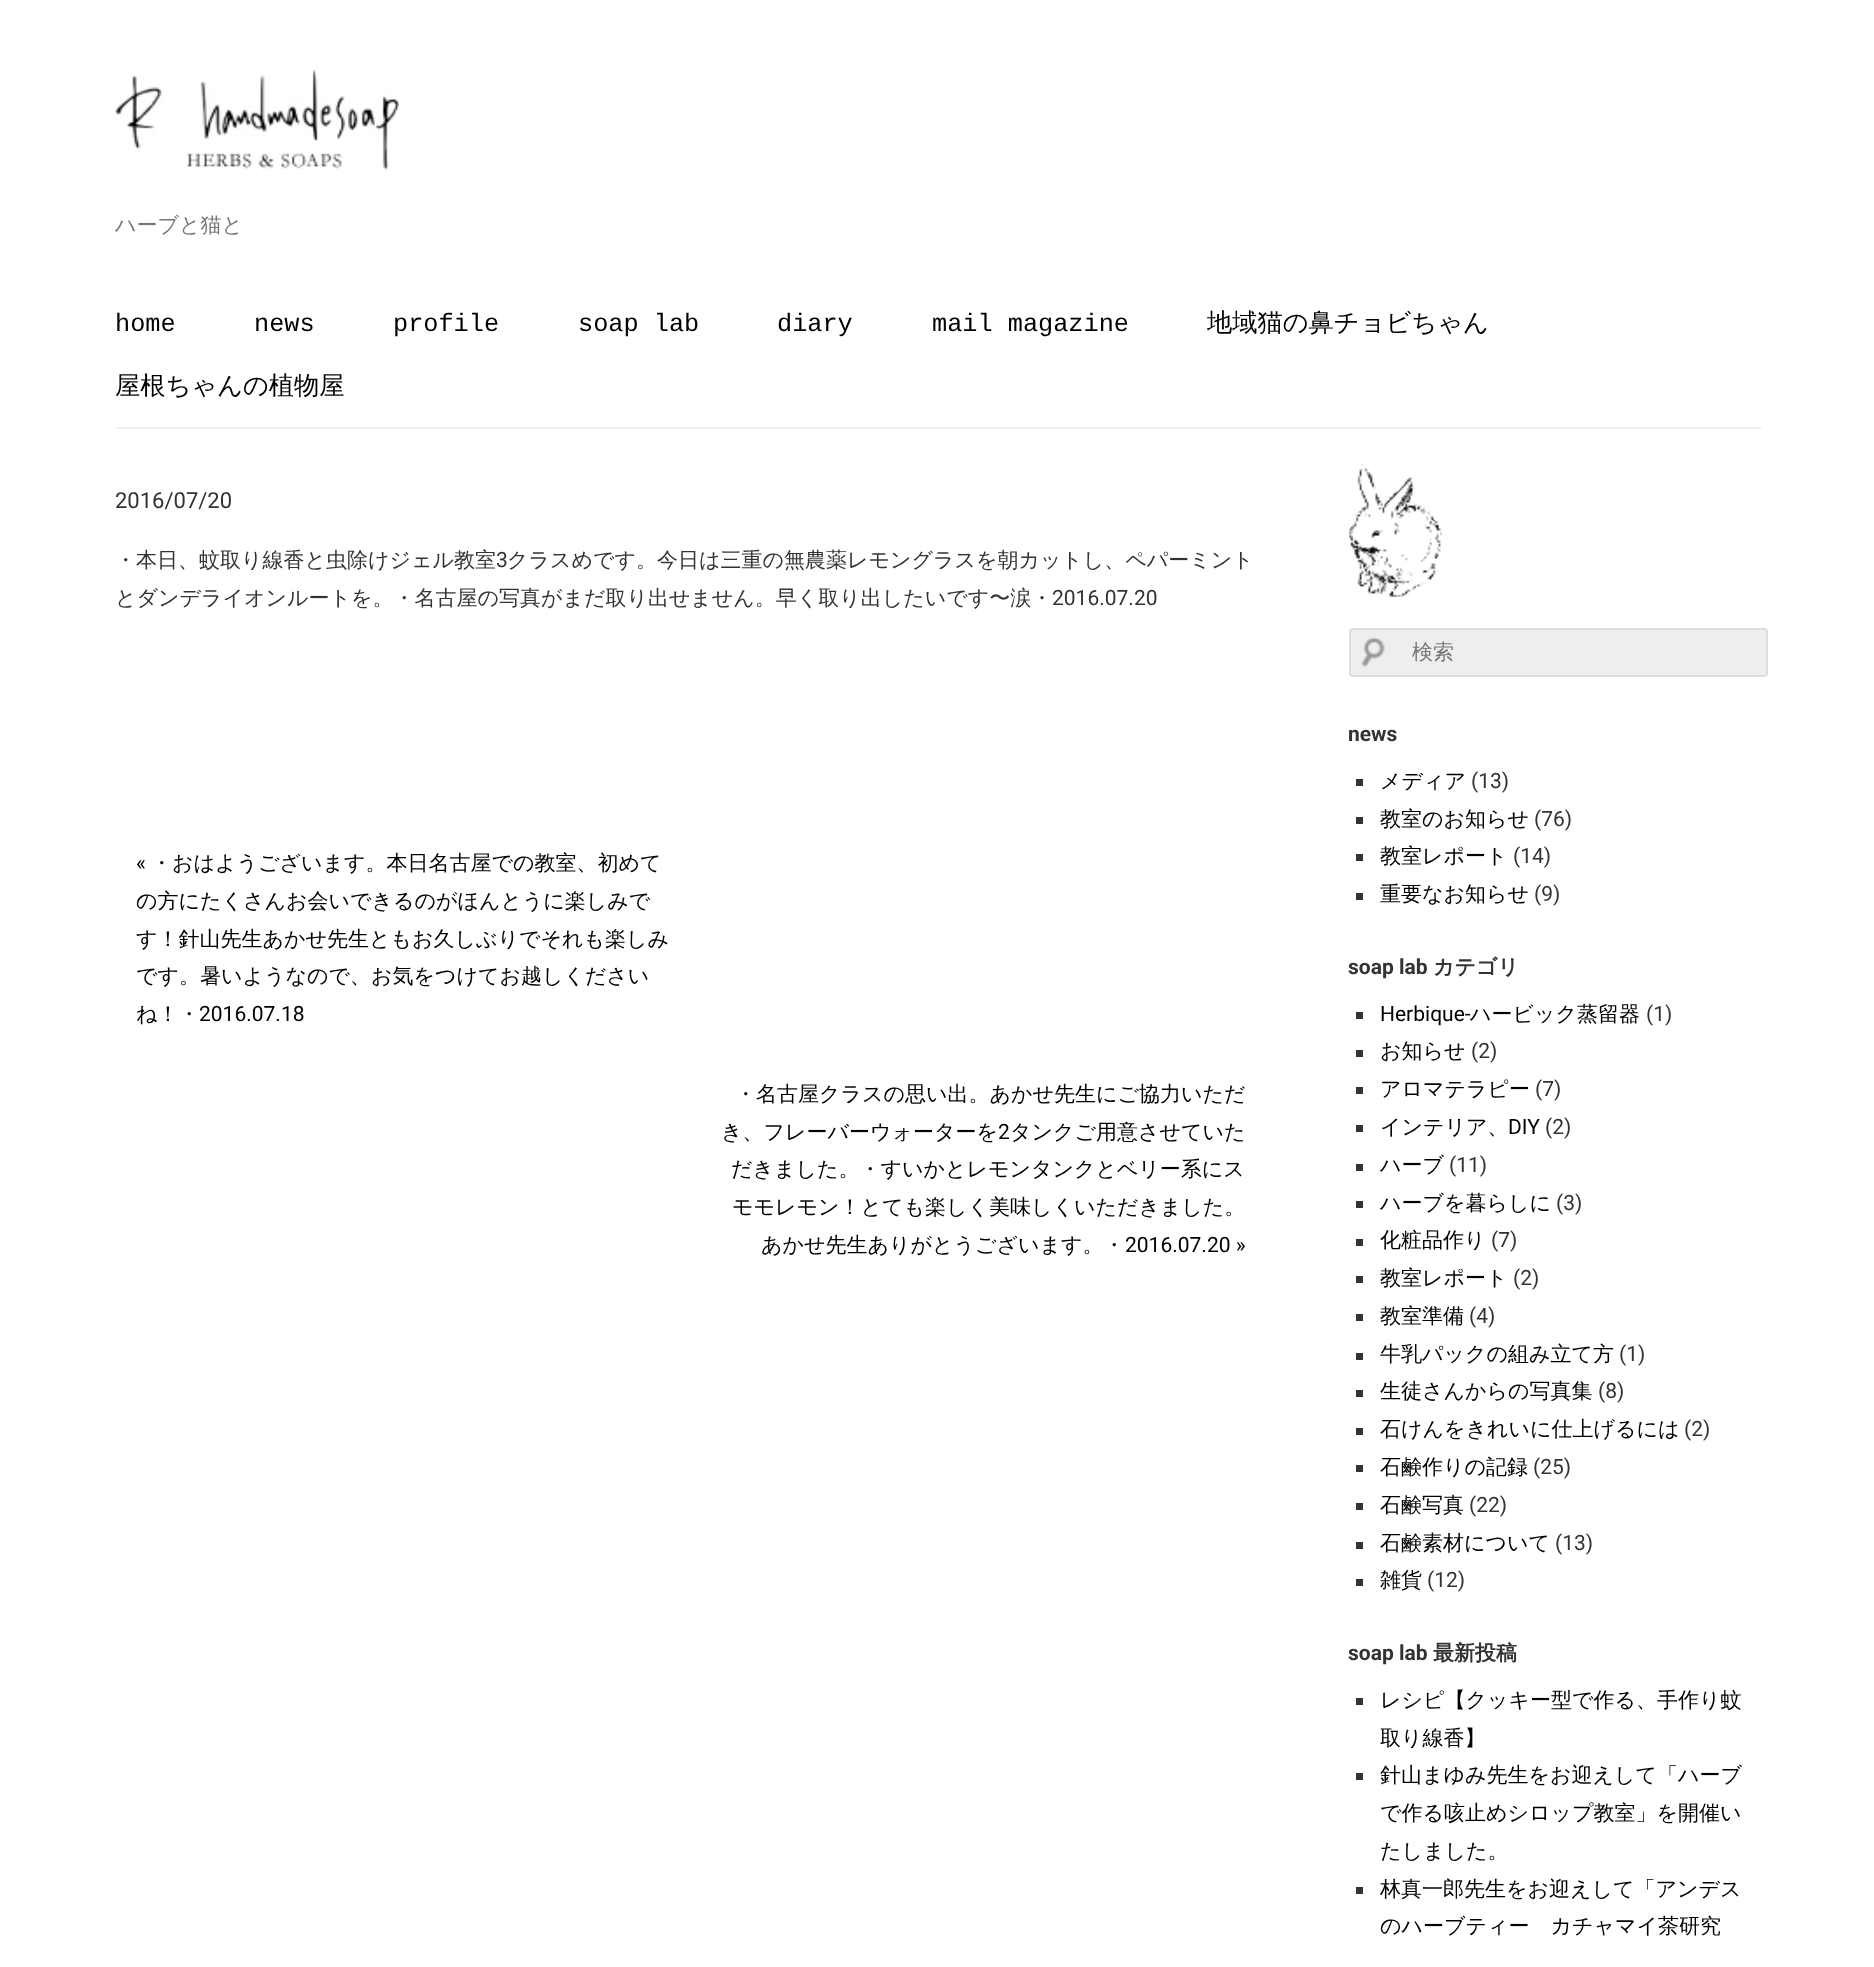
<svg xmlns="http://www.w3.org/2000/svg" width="1874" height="1967">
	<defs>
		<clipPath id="clip1"><rect x="116" y="464" width="1151" height="359" /></clipPath>
	</defs>
	<rect width="100%" height="100%" fill="#FFFFFF" />
	<rect x="116" y="427" width="1645" height="2" fill="#EEEEEE" />
	<image x="115" y="70" width="284" height="100" href="assets/img1.png" />
	<text x="115" y="232" font-family="WenQuanYi Zen Hei" font-size="21" font-weight="500" fill="#777777">ハーブと猫と</text>
	<g font-family="Liberation Mono" font-size="25.25" fill="#000000">
		<text x="115" y="331">home</text>
		<text x="254" y="331">news</text>
		<text x="393" y="331">profile</text>
		<text x="578" y="331">soap lab</text>
		<text x="777" y="331">diary</text>
		<text x="932" y="331">mail magazine</text>
	</g>
	<g font-family="WenQuanYi Zen Hei" font-size="25.25" font-weight="500" fill="#000000">
		<text x="1207" y="331">地域猫の鼻チョビちゃん</text>
		<text x="115" y="394">屋根ちゃんの植物屋</text>
	</g>
	<g clip-path="url(#clip1)">
		<text x="115" y="508" font-family="Roboto" font-size="22" fill="#333333">2016/07/20</text>
	</g>
	<text x="115" y="567" font-family="WenQuanYi Zen Hei" font-size="21" font-weight="500" fill="#333333">・本日、蚊取り線香と虫除けジェル教室</text>
	<text x="496" y="567" font-family="Roboto" font-size="21" fill="#333333">3</text>
	<g font-family="WenQuanYi Zen Hei" font-size="21" font-weight="500" fill="#333333">
		<text x="507" y="567">クラスめです。今日は三重の無農薬レモングラスを朝カットし、ペパーミント</text>
		<text x="115" y="605">とダンデライオンルートを。・名古屋の写真がまだ取り出せません。早く取り出したいです〜涙・</text>
	</g>
	<text x="1052" y="605" font-family="Roboto" font-size="21" fill="#333333">2016.07.20</text>
	<text x="136" y="870" font-family="Roboto" font-size="21" fill="#000000">«</text>
	<g font-family="WenQuanYi Zen Hei" font-size="21" font-weight="500" fill="#000000">
		<text x="151" y="870">・おはようございます。本日名古屋での教室、初めて</text>
		<text x="136" y="908">の方にたくさんお会いできるのがほんとうに楽しみで</text>
		<text x="136" y="946">す！針山先生あかせ先生ともお久しぶりでそれも楽しみ</text>
		<text x="136" y="983">です。暑いようなので、お気をつけてお越しください</text>
		<text x="136" y="1021">ね！・</text>
	</g>
	<text x="199" y="1021" font-family="Roboto" font-size="21" fill="#000000">2016.07.18</text>
	<g font-family="WenQuanYi Zen Hei" font-size="21" font-weight="500" fill="#000000">
		<text x="735" y="1101">・名古屋クラスの思い出。あかせ先生にご協力いただ</text>
		<text x="721" y="1139">き、フレーバーウォーターを</text>
	</g>
	<text x="998" y="1139" font-family="Roboto" font-size="21" fill="#000000">2</text>
	<g font-family="WenQuanYi Zen Hei" font-size="21" font-weight="500" fill="#000000">
		<text x="1010" y="1139">タンクご用意させていた</text>
		<text x="731" y="1176">だきました。・すいかとレモンタンクとベリー系にス</text>
		<text x="732" y="1214">モモレモン！とても楽しく美味しくいただきました。</text>
		<text x="761" y="1252">あかせ先生ありがとうございます。・</text>
	</g>
	<text x="1125" y="1252" font-family="Roboto" font-size="21" fill="#000000">2016.07.20 »</text>
	<image x="1349" y="463" width="93" height="134" href="assets/img2.png" />
	<rect x="1350" y="629" width="417" height="47" rx="3" fill="#EEEEEE" stroke="#DDDDDD" stroke-width="2" />
	<image x="1361" y="637" width="24" height="30" href="assets/img3.png" />
	<text x="1412" y="659" font-family="WenQuanYi Zen Hei" font-size="21" font-weight="500" fill="#777777">検索</text>
	<text x="1348" y="741" font-family="Roboto" font-size="21" font-weight="700" fill="#333333">news</text>
	<rect x="1356" y="779" width="7" height="7" fill="#333333" />
	<text x="1380" y="788" font-family="WenQuanYi Zen Hei" font-size="21" font-weight="500" fill="#000000">メディア</text>
	<text x="1471" y="788" font-family="Roboto" font-size="21" fill="#333333">(13)</text>
	<rect x="1356" y="817" width="7" height="7" fill="#333333" />
	<text x="1380" y="826" font-family="WenQuanYi Zen Hei" font-size="21" font-weight="500" fill="#000000">教室のお知らせ</text>
	<text x="1534" y="826" font-family="Roboto" font-size="21" fill="#333333">(76)</text>
	<rect x="1356" y="854" width="7" height="7" fill="#333333" />
	<text x="1380" y="863" font-family="WenQuanYi Zen Hei" font-size="21" font-weight="500" fill="#000000">教室レポート</text>
	<text x="1513" y="863" font-family="Roboto" font-size="21" fill="#333333">(14)</text>
	<rect x="1356" y="893" width="7" height="7" fill="#333333" />
	<text x="1380" y="901" font-family="WenQuanYi Zen Hei" font-size="21" font-weight="500" fill="#000000">重要なお知らせ</text>
	<text x="1534" y="901" font-family="Roboto" font-size="21" fill="#333333">(9)</text>
	<text x="1348" y="974" font-family="Roboto" font-size="21" font-weight="700" fill="#333333">soap lab</text>
	<text x="1433" y="974" font-family="WenQuanYi Zen Hei" font-size="21" font-weight="700" fill="#333333">カテゴリ</text>
	<rect x="1356" y="1012" width="7" height="7" fill="#333333" />
	<text x="1380" y="1021" font-family="Roboto" font-size="21" fill="#000000">Herbique-</text>
	<text x="1470" y="1021" font-family="WenQuanYi Zen Hei" font-size="21" font-weight="500" fill="#000000">ハービック蒸留器</text>
	<text x="1646" y="1021" font-family="Roboto" font-size="21" fill="#333333">(1)</text>
	<rect x="1356" y="1050" width="7" height="7" fill="#333333" />
	<text x="1380" y="1058" font-family="WenQuanYi Zen Hei" font-size="21" font-weight="500" fill="#000000">お知らせ</text>
	<text x="1471" y="1058" font-family="Roboto" font-size="21" fill="#333333">(2)</text>
	<rect x="1356" y="1087" width="7" height="7" fill="#333333" />
	<text x="1380" y="1096" font-family="WenQuanYi Zen Hei" font-size="21" font-weight="500" fill="#000000">アロマテラピー</text>
	<text x="1535" y="1096" font-family="Roboto" font-size="21" fill="#333333">(7)</text>
	<rect x="1356" y="1125" width="7" height="7" fill="#333333" />
	<text x="1380" y="1134" font-family="WenQuanYi Zen Hei" font-size="21" font-weight="500" fill="#000000">インテリア、</text>
	<text x="1508" y="1134" font-family="Roboto" font-size="21" fill="#000000">DIY</text>
	<text x="1545" y="1134" font-family="Roboto" font-size="21" fill="#333333">(2)</text>
	<rect x="1356" y="1164" width="7" height="7" fill="#333333" />
	<text x="1380" y="1172" font-family="WenQuanYi Zen Hei" font-size="21" font-weight="500" fill="#000000">ハーブ</text>
	<text x="1449" y="1172" font-family="Roboto" font-size="21" fill="#333333">(11)</text>
	<rect x="1356" y="1201" width="7" height="7" fill="#333333" />
	<text x="1380" y="1210" font-family="WenQuanYi Zen Hei" font-size="21" font-weight="500" fill="#000000">ハーブを暮らしに</text>
	<text x="1556" y="1210" font-family="Roboto" font-size="21" fill="#333333">(3)</text>
	<rect x="1356" y="1239" width="7" height="7" fill="#333333" />
	<text x="1380" y="1247" font-family="WenQuanYi Zen Hei" font-size="21" font-weight="500" fill="#000000">化粧品作り</text>
	<text x="1491" y="1247" font-family="Roboto" font-size="21" fill="#333333">(7)</text>
	<rect x="1356" y="1276" width="7" height="7" fill="#333333" />
	<text x="1380" y="1285" font-family="WenQuanYi Zen Hei" font-size="21" font-weight="500" fill="#000000">教室レポート</text>
	<text x="1513" y="1285" font-family="Roboto" font-size="21" fill="#333333">(2)</text>
	<rect x="1356" y="1314" width="7" height="7" fill="#333333" />
	<text x="1380" y="1323" font-family="WenQuanYi Zen Hei" font-size="21" font-weight="500" fill="#000000">教室準備</text>
	<text x="1469" y="1323" font-family="Roboto" font-size="21" fill="#333333">(4)</text>
	<rect x="1356" y="1353" width="7" height="7" fill="#333333" />
	<text x="1380" y="1361" font-family="WenQuanYi Zen Hei" font-size="21" font-weight="500" fill="#000000">牛乳パックの組み立て方</text>
	<text x="1619" y="1361" font-family="Roboto" font-size="21" fill="#333333">(1)</text>
	<rect x="1356" y="1390" width="7" height="7" fill="#333333" />
	<text x="1380" y="1398" font-family="WenQuanYi Zen Hei" font-size="21" font-weight="500" fill="#000000">生徒さんからの写真集</text>
	<text x="1598" y="1398" font-family="Roboto" font-size="21" fill="#333333">(8)</text>
	<rect x="1356" y="1428" width="7" height="7" fill="#333333" />
	<text x="1380" y="1436" font-family="WenQuanYi Zen Hei" font-size="21" font-weight="500" fill="#000000">石けんをきれいに仕上げるには</text>
	<text x="1684" y="1436" font-family="Roboto" font-size="21" fill="#333333">(2)</text>
	<rect x="1356" y="1465" width="7" height="7" fill="#333333" />
	<text x="1380" y="1474" font-family="WenQuanYi Zen Hei" font-size="21" font-weight="500" fill="#000000">石鹸作りの記録</text>
	<text x="1533" y="1474" font-family="Roboto" font-size="21" fill="#333333">(25)</text>
	<rect x="1356" y="1503" width="7" height="7" fill="#333333" />
	<text x="1380" y="1512" font-family="WenQuanYi Zen Hei" font-size="21" font-weight="500" fill="#000000">石鹸写真</text>
	<text x="1469" y="1512" font-family="Roboto" font-size="21" fill="#333333">(22)</text>
	<rect x="1356" y="1542" width="7" height="7" fill="#333333" />
	<text x="1380" y="1550" font-family="WenQuanYi Zen Hei" font-size="21" font-weight="500" fill="#000000">石鹸素材について</text>
	<text x="1555" y="1550" font-family="Roboto" font-size="21" fill="#333333">(13)</text>
	<rect x="1356" y="1579" width="7" height="7" fill="#333333" />
	<text x="1380" y="1587" font-family="WenQuanYi Zen Hei" font-size="21" font-weight="500" fill="#000000">雑貨</text>
	<text x="1427" y="1587" font-family="Roboto" font-size="21" fill="#333333">(12)</text>
	<text x="1348" y="1660" font-family="Roboto" font-size="21" font-weight="700" fill="#333333">soap lab</text>
	<text x="1433" y="1660" font-family="WenQuanYi Zen Hei" font-size="21" font-weight="700" fill="#333333">最新投稿</text>
	<rect x="1356" y="1698" width="7" height="7" fill="#333333" />
	<g font-family="WenQuanYi Zen Hei" font-size="21" font-weight="500" fill="#000000">
		<text x="1380" y="1707">レシピ【クッキー型で作る、手作り蚊</text>
		<text x="1380" y="1745">取り線香】</text>
	</g>
	<rect x="1356" y="1773" width="7" height="7" fill="#333333" />
	<g font-family="WenQuanYi Zen Hei" font-size="21" font-weight="500" fill="#000000">
		<text x="1380" y="1782">針山まゆみ先生をお迎えして「ハーブ</text>
		<text x="1380" y="1820">で作る咳止めシロップ教室」を開催い</text>
		<text x="1380" y="1858">たしました。</text>
	</g>
	<rect x="1356" y="1887" width="7" height="7" fill="#333333" />
	<g font-family="WenQuanYi Zen Hei" font-size="21" font-weight="500" fill="#000000">
		<text x="1380" y="1896">林真一郎先生をお迎えして「アンデス</text>
		<text x="1380" y="1933">のハーブティー　カチャマイ茶研究</text>
	</g>
</svg>
